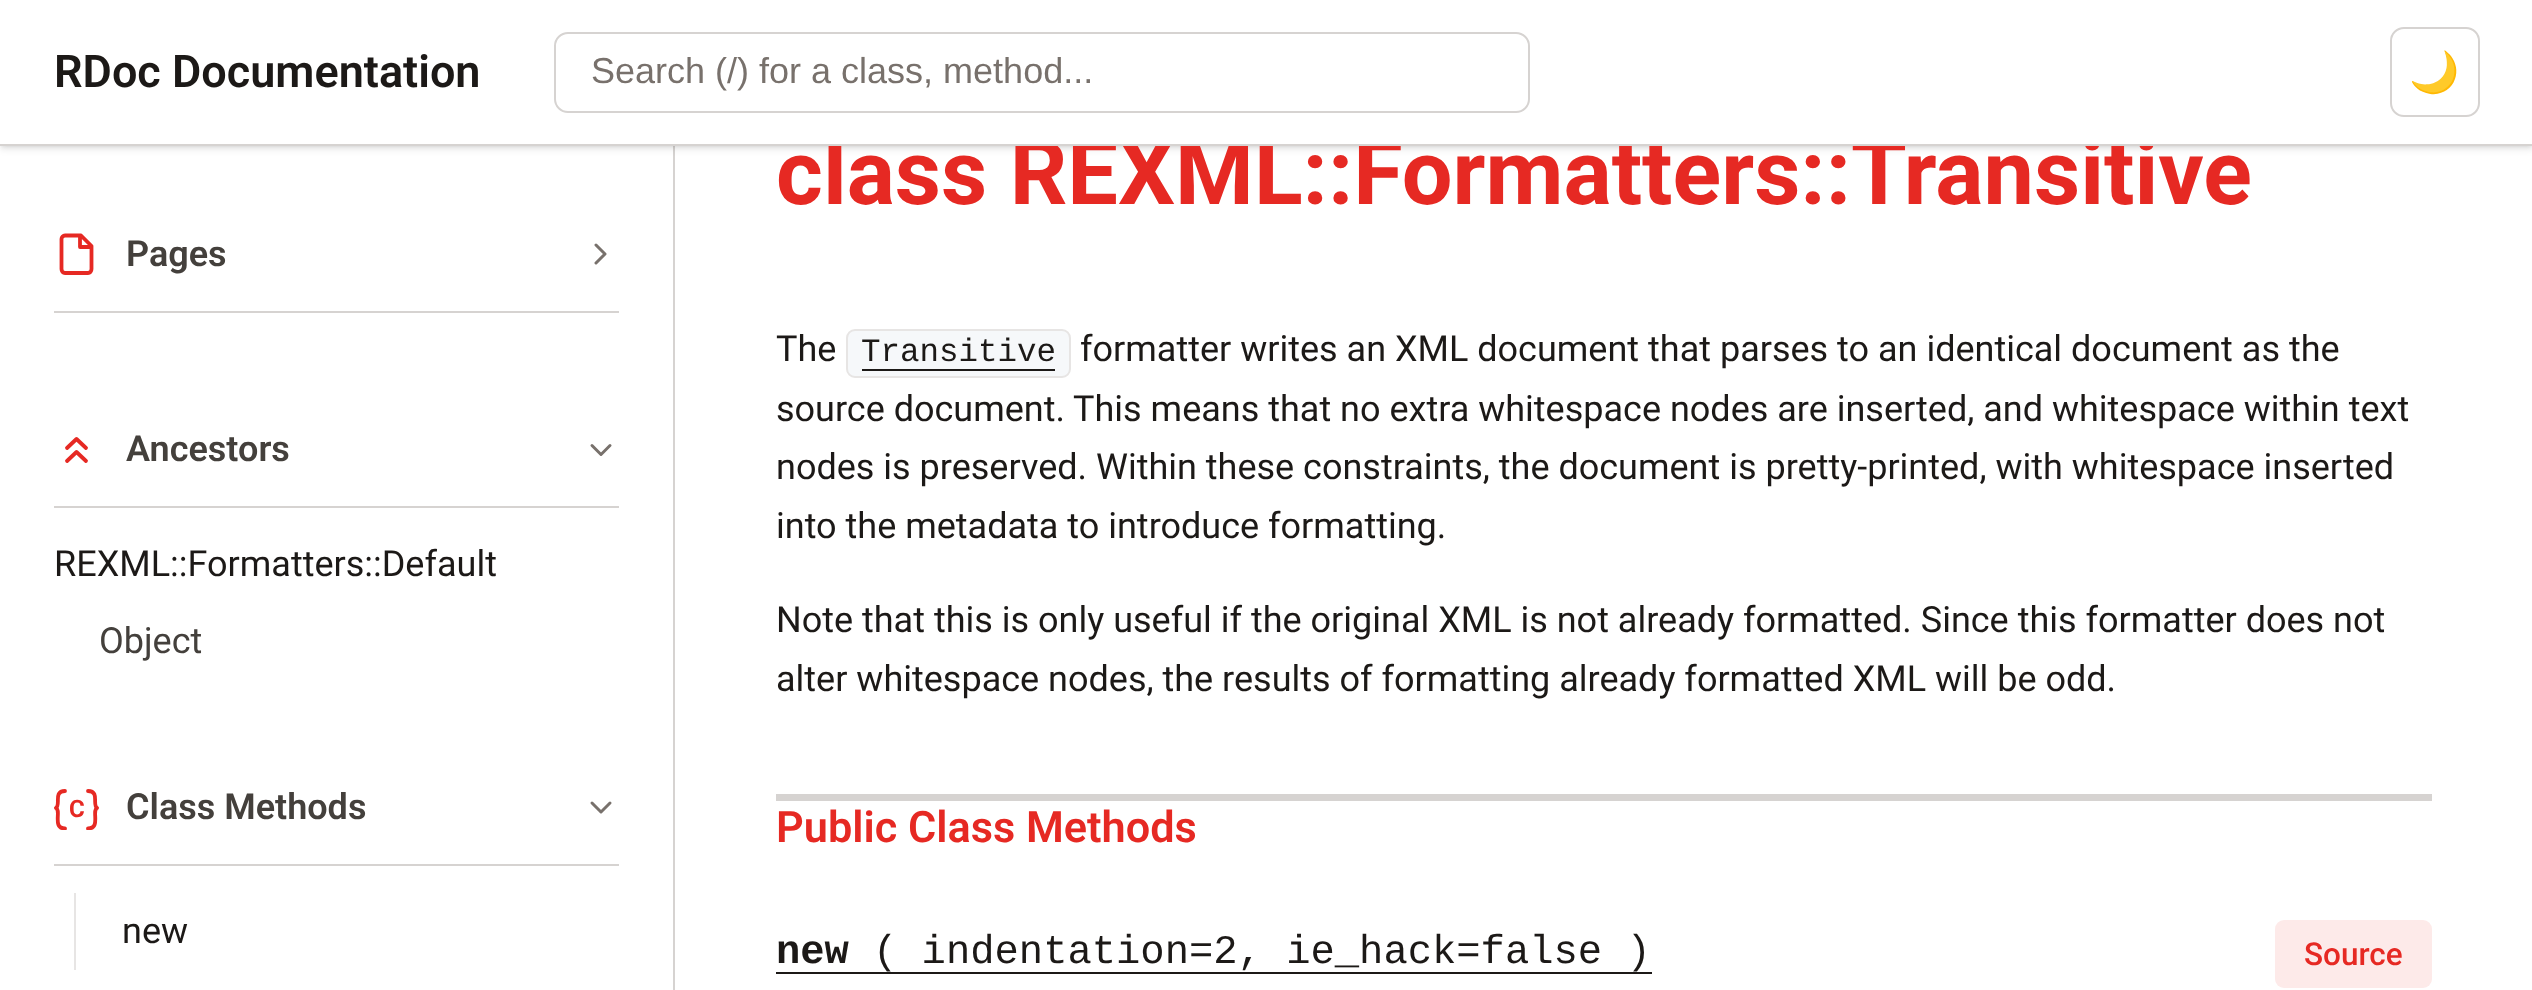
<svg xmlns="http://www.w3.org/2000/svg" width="2532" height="990">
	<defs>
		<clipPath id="clip1"><rect x="54" y="785" width="45" height="45" /></clipPath>
	</defs>
	<rect width="100%" height="100%" fill="#FFFFFF" />
	<rect x="673" y="144" width="2" height="846" fill="#D6D3D1" />
	<rect x="2" y="5" width="2529" height="141" fill="#000000" fill-opacity="0.1" filter="blur(2px)" />
	<rect x="0" y="2" width="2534" height="147" fill="#000000" fill-opacity="0.1" filter="blur(3.5px)" />
	<text x="776" y="204" font-family="Roboto" font-size="90" font-weight="700" fill="#E62923">class REXML::Formatters::Transitive</text>
	<rect x="0" y="0" width="2532" height="144" fill="#FFFFFF" />
	<rect x="0" y="144" width="2532" height="2" fill="#D6D3D1" />
	<text x="54" y="87" font-family="Roboto" font-size="45" font-weight="600" fill="#1C1917">RDoc Documentation</text>
	<rect x="555" y="33" width="974" height="79" rx="13" fill="none" stroke="#D6D3D1" stroke-width="2" />
	<text x="591" y="83" font-family="Liberation Sans" font-size="36" fill="#78716C">Search (/) for a class, method...</text>
	<rect x="2391" y="28" width="88" height="88" rx="13" fill="none" stroke="#D6D3D1" stroke-width="2" />
	<text x="2409" y="86" font-family="Noto Color Emoji" font-size="40.5" fill="#1C1917">🌙</text>
	<rect x="54" y="311" width="565" height="2" fill="#D6D3D1" />
	<path d="M81 235.5H65C63 235.5 61.5 237 61.5 239V269C61.5 271.5 63 273 65 273H88C90 273 91.5 271.5 91.5 269V246ZM80 235.5V247H91.5" fill="none" stroke="#E62923" stroke-width="3.8" stroke-linecap="round" stroke-linejoin="round" />
	<text x="126" y="266" font-family="Roboto" font-size="36" font-weight="600" fill="#44403C">Pages</text>
	<path d="M596 263L605 254L596 245" fill="none" stroke="#78716C" stroke-width="3" stroke-linecap="round" stroke-linejoin="round" />
	<rect x="54" y="506" width="565" height="2" fill="#D6D3D1" />
	<path d="M86 448L76.5 439L67 448M86 461L76.5 452L67 461" fill="none" stroke="#E62923" stroke-width="3.8" stroke-linecap="round" stroke-linejoin="round" />
	<text x="126" y="461" font-family="Roboto" font-size="36" font-weight="600" fill="#44403C">Ancestors</text>
	<path d="M592 445.5L601 454.5L610 445.5" fill="none" stroke="#78716C" stroke-width="3" stroke-linecap="round" stroke-linejoin="round" />
	<text x="54" y="576" font-family="Roboto" font-size="36" fill="#1C1917">REXML::Formatters::Default</text>
	<text x="99" y="653" font-family="Roboto" font-size="36" fill="#44403C">Object</text>
	<rect x="54" y="864" width="565" height="2" fill="#D6D3D1" />
	<g clip-path="url(#clip1)">
		<path d="M65 791C53 791 61 805 56 808C61.5 810.5 52 828.5 65 828.5M88 791C100 791 92 805 97 808C91.5 810.5 101 828.5 88 828.5" fill="none" stroke="#E62923" stroke-width="3.8" stroke-linecap="round" stroke-linejoin="round" />
	</g>
	<text x="69" y="817" font-family="Roboto" font-size="24" font-weight="700" fill="#E62923">C</text>
	<text x="126" y="819" font-family="Roboto" font-size="36" font-weight="600" fill="#44403C">Class Methods</text>
	<path d="M592 803L601 812L610 803" fill="none" stroke="#78716C" stroke-width="3" stroke-linecap="round" stroke-linejoin="round" />
	<rect x="74" y="893" width="2" height="77" fill="#E7E5E4" />
	<g font-family="Roboto" font-size="36" fill="#1C1917">
		<text x="122" y="943">new</text>
		<text x="776" y="361">The</text>
	</g>
	<rect x="847" y="330" width="223" height="47" rx="8" fill="#F6F8FA" stroke="#E7E5E4" stroke-width="2" />
	<text x="861" y="361" font-family="Liberation Mono" font-size="32.5" fill="#1C1917">Transitive</text>
	<rect x="862" y="369" width="193" height="2" fill="#1C1917" />
	<g font-family="Roboto" font-size="36" fill="#1C1917">
		<text x="1080" y="361">formatter writes an XML document that parses to an identical document as the</text>
		<text x="776" y="421">source document.</text>
		<text x="1073" y="421">This means that no extra whitespace nodes are inserted, and whitespace within text</text>
		<text x="776" y="479">nodes is preserved. Within these constraints, the document is pretty-printed, with whitespace inserted</text>
		<text x="776" y="538">into the metadata to introduce formatting.</text>
		<text x="776" y="632">Note that this is only useful if the original XML is not already formatted. Since this formatter does not</text>
		<text x="776" y="691">alter whitespace nodes, the results of formatting already formatted XML will be odd.</text>
	</g>
	<rect x="776" y="794" width="1656" height="7" fill="#D6D3D1" />
	<text x="776" y="842" font-family="Roboto" font-size="43.25" font-weight="600" fill="#E62923">Public Class Methods</text>
	<text x="776" y="963" font-family="Liberation Mono" font-size="40.5" font-weight="700" fill="#1C1917">new</text>
	<rect x="776" y="972" width="876" height="2" fill="#1C1917" />
	<text x="873" y="963" font-family="Liberation Mono" font-size="40.5" fill="#1C1917">( indentation=2, ie_hack=false )</text>
	<rect x="2275" y="920" width="157" height="68" rx="9" fill="#FDEAE9" />
	<text x="2304" y="965" font-family="Roboto" font-size="31.5" font-weight="500" fill="#E62923">Source</text>
</svg>
